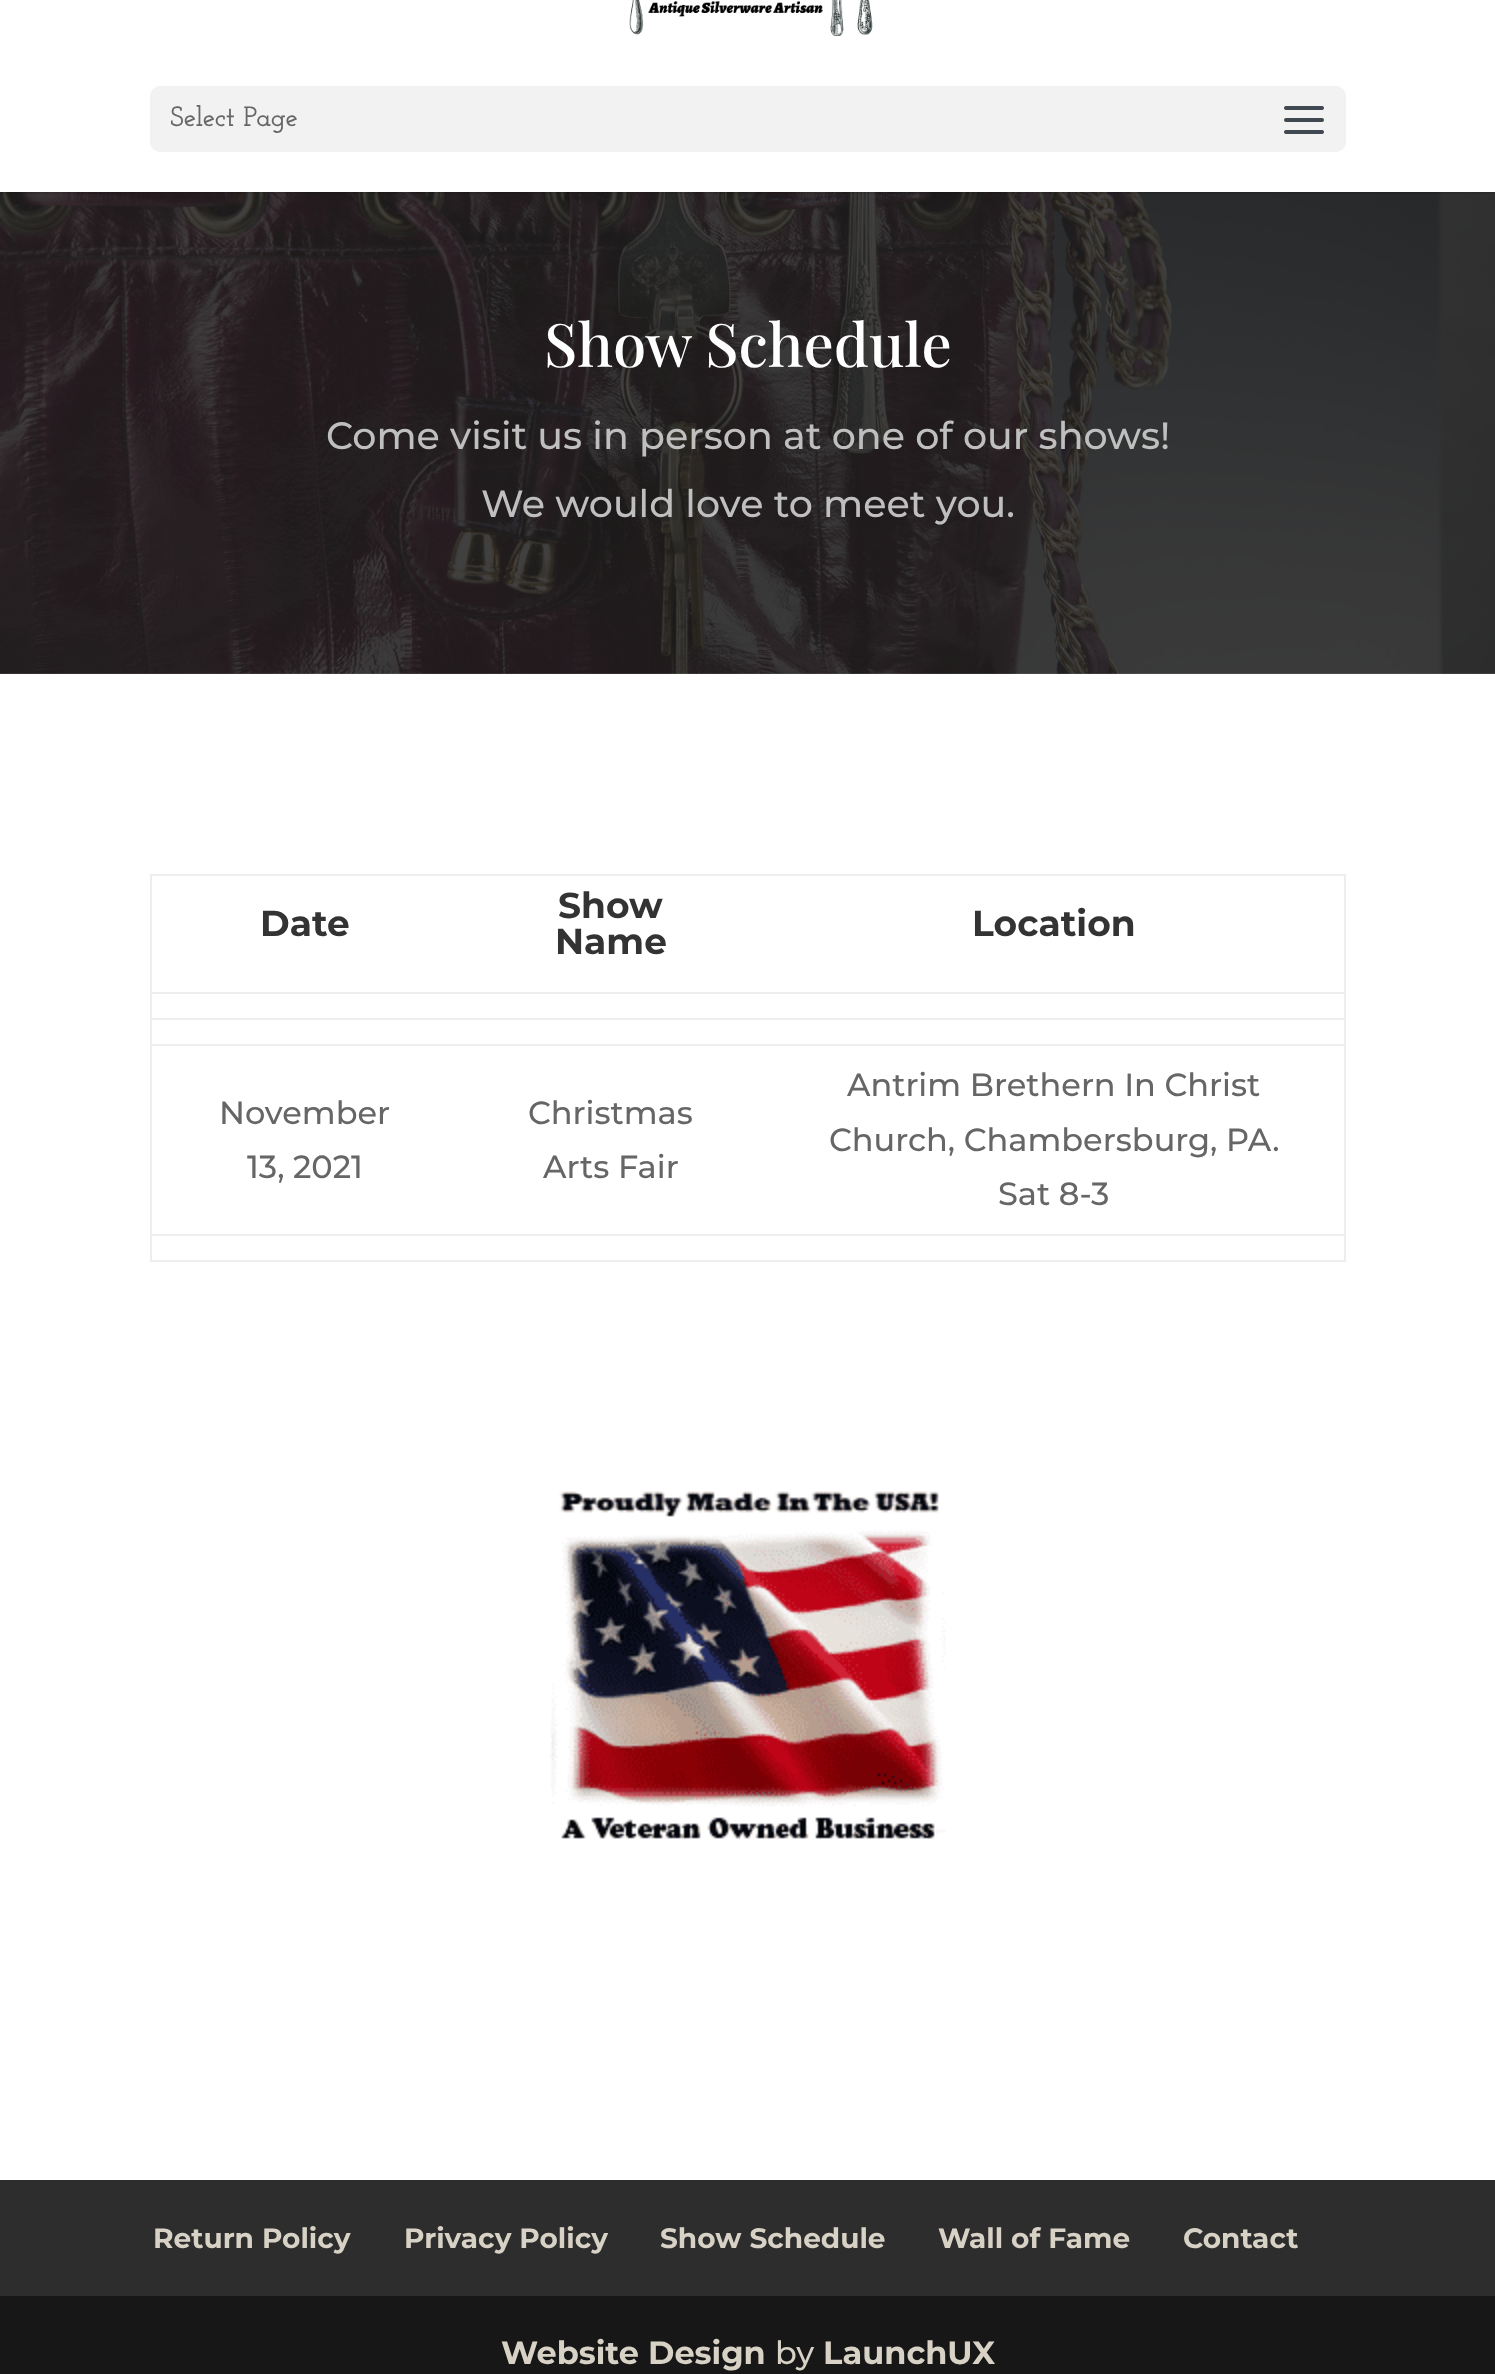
<svg xmlns="http://www.w3.org/2000/svg" width="1495" height="2374">
	<rect width="100%" height="100%" fill="#FFFFFF" />
	<image x="0" y="192" width="1495" height="482" href="assets/img3.png" />
	<rect x="0" y="192" width="1495" height="2" fill="#000000" fill-opacity="0.1" />
	<image x="629" y="0" width="244" height="36" href="assets/img1.png" />
	<rect x="150" y="86" width="1196" height="66" rx="10" fill="#F2F2F2" />
	<text x="170" y="126" font-family="Josefin Slab" font-size="28" font-weight="600" fill="#666666">Select Page</text>
	<image x="1284" y="106" width="40" height="28" href="assets/img2.png" />
	<text x="544" y="367" font-family="Playfair Display" font-size="60" font-weight="500" fill="#FFFFFF">Show Schedule</text>
	<g font-family="Montserrat" font-size="38" font-weight="500" fill="#BFBFBF">
		<text x="326" y="449">Come visit us in person at one of our shows!</text>
		<text x="481" y="517">We would love to meet you.</text>
	</g>
	<rect x="150" y="874" width="1196" height="2" fill="#EEEEEE" />
	<rect x="1344" y="874" width="2" height="388" fill="#EEEEEE" />
	<rect x="150" y="1260" width="1196" height="2" fill="#EEEEEE" />
	<rect x="150" y="874" width="2" height="388" fill="#EEEEEE" />
	<g font-family="Montserrat" font-size="36" font-weight="700" fill="#333333">
		<text x="260" y="936">Date</text>
		<text x="558" y="918">Show</text>
		<text x="555" y="954">Name</text>
		<text x="972" y="936">Location</text>
	</g>
	<rect x="150" y="992" width="1196" height="2" fill="#EEEEEE" />
	<rect x="150" y="1018" width="1196" height="2" fill="#EEEEEE" />
	<g font-family="Montserrat" font-size="32" font-weight="500" fill="#666666">
		<text x="219" y="1124">November</text>
		<text x="247" y="1178">13, 2021</text>
		<text x="528" y="1124">Christmas</text>
		<text x="543" y="1178">Arts Fair</text>
	</g>
	<rect x="150" y="1044" width="1196" height="2" fill="#EEEEEE" />
	<g font-family="Montserrat" font-size="32" font-weight="500" fill="#666666">
		<text x="847" y="1096">Antrim Brethern In Christ</text>
		<text x="829" y="1151">Church, Chambersburg, PA.</text>
		<text x="998" y="1205">Sat 8-3</text>
	</g>
	<rect x="150" y="1234" width="1196" height="2" fill="#EEEEEE" />
	<image x="550" y="1491" width="396" height="349" href="assets/img4.png" />
	<rect x="0" y="2180" width="1495" height="116" fill="#2D2D2D" />
	<g font-family="Montserrat" font-size="28" font-weight="700" fill="#D8D2C6">
		<text x="153" y="2248">Return Policy</text>
		<text x="404" y="2248">Privacy Policy</text>
		<text x="660" y="2248">Show Schedule</text>
		<text x="938" y="2248">Wall of Fame</text>
		<text x="1183" y="2248">Contact</text>
	</g>
	<rect x="0" y="2296" width="1495" height="78" fill="#171717" />
	<text x="501" y="2364" font-family="Montserrat" font-size="32" font-weight="700" fill="#D8D2C6">Website Design</text>
	<text x="775" y="2364" font-family="Montserrat" font-size="32" font-weight="500" fill="#D8D2C6">by</text>
	<text x="823" y="2364" font-family="Montserrat" font-size="32" font-weight="700" fill="#D8D2C6">LaunchUX</text>
</svg>
